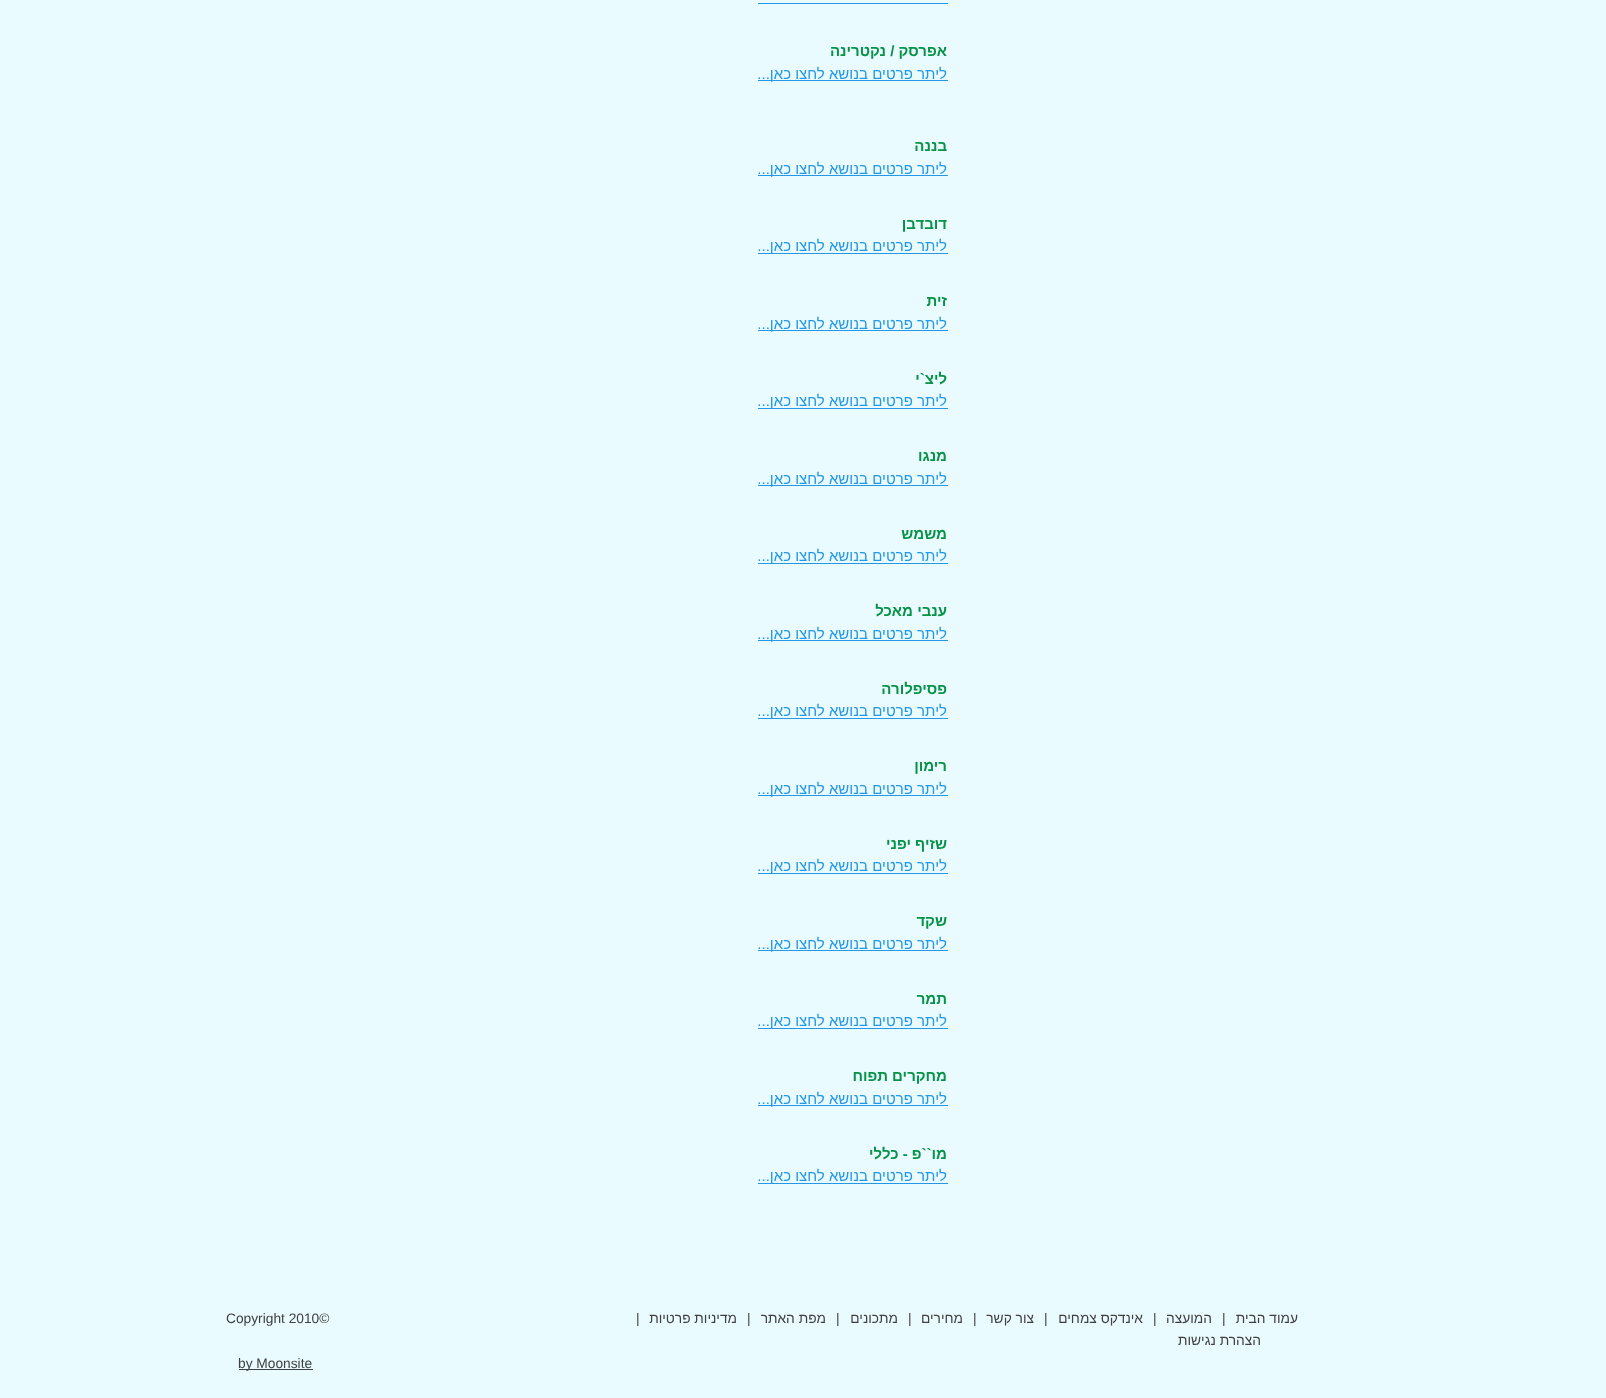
<svg xmlns="http://www.w3.org/2000/svg" width="1606" height="1398">
	<rect width="100%" height="100%" fill="#EAFBFF" />
	<rect x="758" y="3" width="190" height="1" fill="#2397E8" />
	<text x="947" y="56" font-family="Liberation Sans" font-size="15" font-weight="700" direction="rtl" fill="#069346">אפרסק / נקטרינה</text>
	<rect x="758" y="80" width="190" height="1" fill="#2397E8" />
	<text x="947" y="79" font-family="Liberation Sans" font-size="15" direction="rtl" fill="#2397E8">ליתר פרטים בנושא לחצו כאן...</text>
	<text x="947" y="151" font-family="Liberation Sans" font-size="15" font-weight="700" direction="rtl" fill="#069346">בננה</text>
	<rect x="758" y="175" width="190" height="1" fill="#2397E8" />
	<text x="947" y="174" font-family="Liberation Sans" font-size="15" direction="rtl" fill="#2397E8">ליתר פרטים בנושא לחצו כאן...</text>
	<text x="947" y="229" font-family="Liberation Sans" font-size="15" font-weight="700" direction="rtl" fill="#069346">דובדבן</text>
	<rect x="758" y="253" width="190" height="1" fill="#2397E8" />
	<text x="947" y="251" font-family="Liberation Sans" font-size="15" direction="rtl" fill="#2397E8">ליתר פרטים בנושא לחצו כאן...</text>
	<text x="947" y="306" font-family="Liberation Sans" font-size="15" font-weight="700" direction="rtl" fill="#069346">זית</text>
	<rect x="758" y="330" width="190" height="1" fill="#2397E8" />
	<text x="947" y="329" font-family="Liberation Sans" font-size="15" direction="rtl" fill="#2397E8">ליתר פרטים בנושא לחצו כאן...</text>
	<text x="947" y="384" font-family="Liberation Sans" font-size="15" font-weight="700" direction="rtl" fill="#069346">ליצ`י</text>
	<rect x="758" y="408" width="190" height="1" fill="#2397E8" />
	<text x="947" y="406" font-family="Liberation Sans" font-size="15" direction="rtl" fill="#2397E8">ליתר פרטים בנושא לחצו כאן...</text>
	<text x="947" y="461" font-family="Liberation Sans" font-size="15" font-weight="700" direction="rtl" fill="#069346">מנגו</text>
	<rect x="758" y="485" width="190" height="1" fill="#2397E8" />
	<text x="947" y="484" font-family="Liberation Sans" font-size="15" direction="rtl" fill="#2397E8">ליתר פרטים בנושא לחצו כאן...</text>
	<text x="947" y="539" font-family="Liberation Sans" font-size="15" font-weight="700" direction="rtl" fill="#069346">משמש</text>
	<rect x="758" y="563" width="190" height="1" fill="#2397E8" />
	<text x="947" y="561" font-family="Liberation Sans" font-size="15" direction="rtl" fill="#2397E8">ליתר פרטים בנושא לחצו כאן...</text>
	<text x="947" y="616" font-family="Liberation Sans" font-size="15" font-weight="700" direction="rtl" fill="#069346">ענבי מאכל</text>
	<rect x="758" y="640" width="190" height="1" fill="#2397E8" />
	<text x="947" y="639" font-family="Liberation Sans" font-size="15" direction="rtl" fill="#2397E8">ליתר פרטים בנושא לחצו כאן...</text>
	<text x="947" y="694" font-family="Liberation Sans" font-size="15" font-weight="700" direction="rtl" fill="#069346">פסיפלורה</text>
	<rect x="758" y="718" width="190" height="1" fill="#2397E8" />
	<text x="947" y="716" font-family="Liberation Sans" font-size="15" direction="rtl" fill="#2397E8">ליתר פרטים בנושא לחצו כאן...</text>
	<text x="947" y="771" font-family="Liberation Sans" font-size="15" font-weight="700" direction="rtl" fill="#069346">רימון</text>
	<rect x="758" y="795" width="190" height="1" fill="#2397E8" />
	<text x="947" y="794" font-family="Liberation Sans" font-size="15" direction="rtl" fill="#2397E8">ליתר פרטים בנושא לחצו כאן...</text>
	<text x="947" y="849" font-family="Liberation Sans" font-size="15" font-weight="700" direction="rtl" fill="#069346">שזיף יפני</text>
	<rect x="758" y="873" width="190" height="1" fill="#2397E8" />
	<text x="947" y="871" font-family="Liberation Sans" font-size="15" direction="rtl" fill="#2397E8">ליתר פרטים בנושא לחצו כאן...</text>
	<text x="947" y="926" font-family="Liberation Sans" font-size="15" font-weight="700" direction="rtl" fill="#069346">שקד</text>
	<rect x="758" y="950" width="190" height="1" fill="#2397E8" />
	<text x="947" y="949" font-family="Liberation Sans" font-size="15" direction="rtl" fill="#2397E8">ליתר פרטים בנושא לחצו כאן...</text>
	<text x="947" y="1004" font-family="Liberation Sans" font-size="15" font-weight="700" direction="rtl" fill="#069346">תמר</text>
	<rect x="758" y="1028" width="190" height="1" fill="#2397E8" />
	<text x="947" y="1026" font-family="Liberation Sans" font-size="15" direction="rtl" fill="#2397E8">ליתר פרטים בנושא לחצו כאן...</text>
	<text x="947" y="1081" font-family="Liberation Sans" font-size="15" font-weight="700" direction="rtl" fill="#069346">מחקרים תפוח</text>
	<rect x="758" y="1105" width="190" height="1" fill="#2397E8" />
	<text x="947" y="1104" font-family="Liberation Sans" font-size="15" direction="rtl" fill="#2397E8">ליתר פרטים בנושא לחצו כאן...</text>
	<text x="947" y="1159" font-family="Liberation Sans" font-size="15" font-weight="700" direction="rtl" fill="#069346">מו``פ - כללי</text>
	<rect x="758" y="1183" width="190" height="1" fill="#2397E8" />
	<text x="947" y="1181" font-family="Liberation Sans" font-size="15" direction="rtl" fill="#2397E8">ליתר פרטים בנושא לחצו כאן...</text>
	<text x="1298" y="1323" font-family="Liberation Sans" font-size="13.75" direction="rtl" fill="#404040">עמוד הבית</text>
	<text x="1222" y="1323" font-family="Liberation Sans" font-size="13.75" fill="#404040">|</text>
	<text x="1212" y="1323" font-family="Liberation Sans" font-size="13.75" direction="rtl" fill="#404040">המועצה</text>
	<text x="1153" y="1323" font-family="Liberation Sans" font-size="13.75" fill="#404040">|</text>
	<text x="1143" y="1323" font-family="Liberation Sans" font-size="13.75" direction="rtl" fill="#404040">אינדקס צמחים</text>
	<text x="1044" y="1323" font-family="Liberation Sans" font-size="13.75" fill="#404040">|</text>
	<text x="1034" y="1323" font-family="Liberation Sans" font-size="13.75" direction="rtl" fill="#404040">צור קשר</text>
	<text x="973" y="1323" font-family="Liberation Sans" font-size="13.75" fill="#404040">|</text>
	<text x="963" y="1323" font-family="Liberation Sans" font-size="13.75" direction="rtl" fill="#404040">מחירים</text>
	<text x="908" y="1323" font-family="Liberation Sans" font-size="13.75" fill="#404040">|</text>
	<text x="898" y="1323" font-family="Liberation Sans" font-size="13.75" direction="rtl" fill="#404040">מתכונים</text>
	<text x="836" y="1323" font-family="Liberation Sans" font-size="13.75" fill="#404040">|</text>
	<text x="826" y="1323" font-family="Liberation Sans" font-size="13.75" direction="rtl" fill="#404040">מפת האתר</text>
	<text x="747" y="1323" font-family="Liberation Sans" font-size="13.75" fill="#404040">|</text>
	<text x="737" y="1323" font-family="Liberation Sans" font-size="13.75" direction="rtl" fill="#404040">מדיניות פרטיות</text>
	<text x="636" y="1323" font-family="Liberation Sans" font-size="13.75" fill="#404040">|</text>
	<text x="1261" y="1345" font-family="Liberation Sans" font-size="13.75" direction="rtl" fill="#404040">הצהרת נגישות</text>
	<text x="226" y="1323" font-family="Liberation Sans" font-size="13.75" fill="#404040">Copyright 2010©</text>
	<rect x="239" y="1369" width="74" height="1" fill="#404040" />
	<text x="238" y="1368" font-family="Liberation Sans" font-size="13.75" fill="#404040">by Moonsite</text>
</svg>
